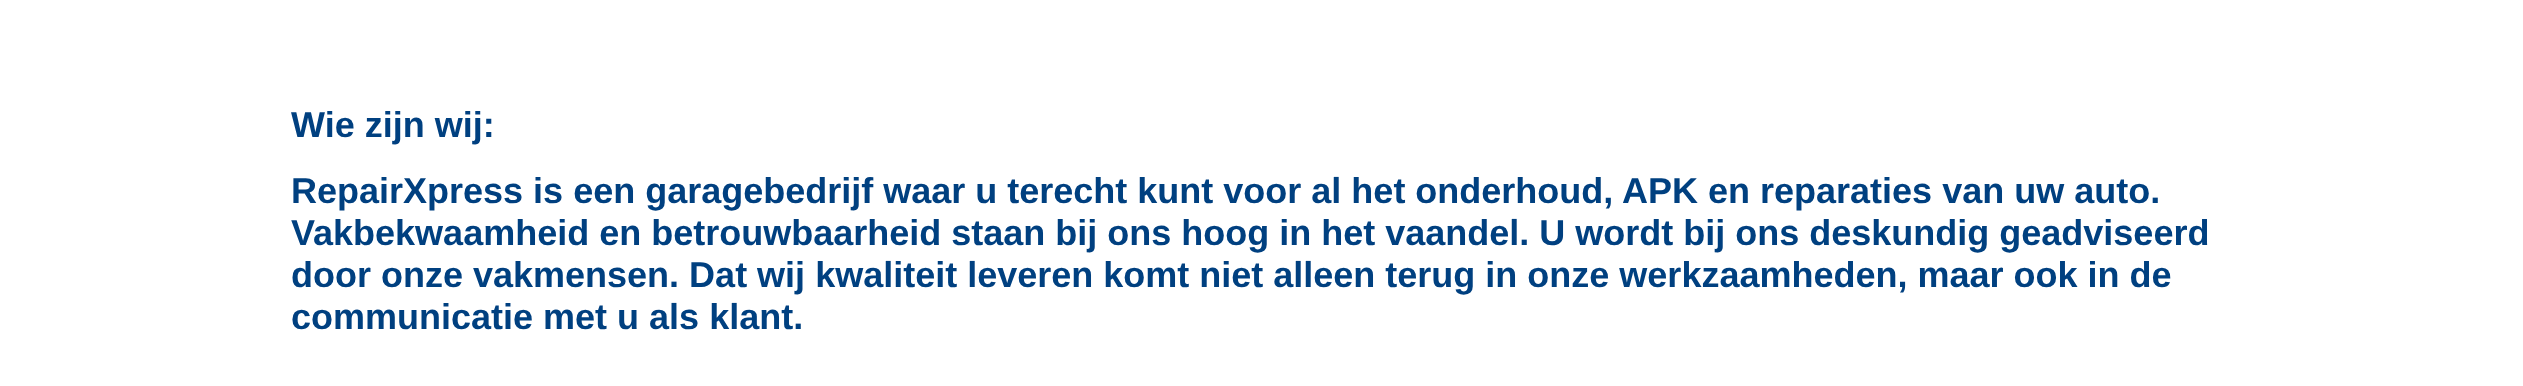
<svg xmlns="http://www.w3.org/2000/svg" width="2523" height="386">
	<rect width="100%" height="100%" fill="#FFFFFF" />
	<g font-family="Liberation Sans" font-size="36" font-weight="700" fill="#004080">
		<text x="291" y="137">Wie zijn wij:</text>
		<text x="291" y="203">RepairXpress is een garagebedrijf waar u terecht kunt voor al het onderhoud, APK en reparaties van uw auto.</text>
		<text x="291" y="245">Vakbekwaamheid en betrouwbaarheid staan bij ons hoog in het vaandel. U wordt bij ons deskundig geadviseerd</text>
		<text x="291" y="287">door onze vakmensen. Dat wij kwaliteit leveren komt niet alleen terug in onze werkzaamheden, maar ook in de</text>
		<text x="291" y="329">communicatie met u als klant.</text>
	</g>
</svg>
